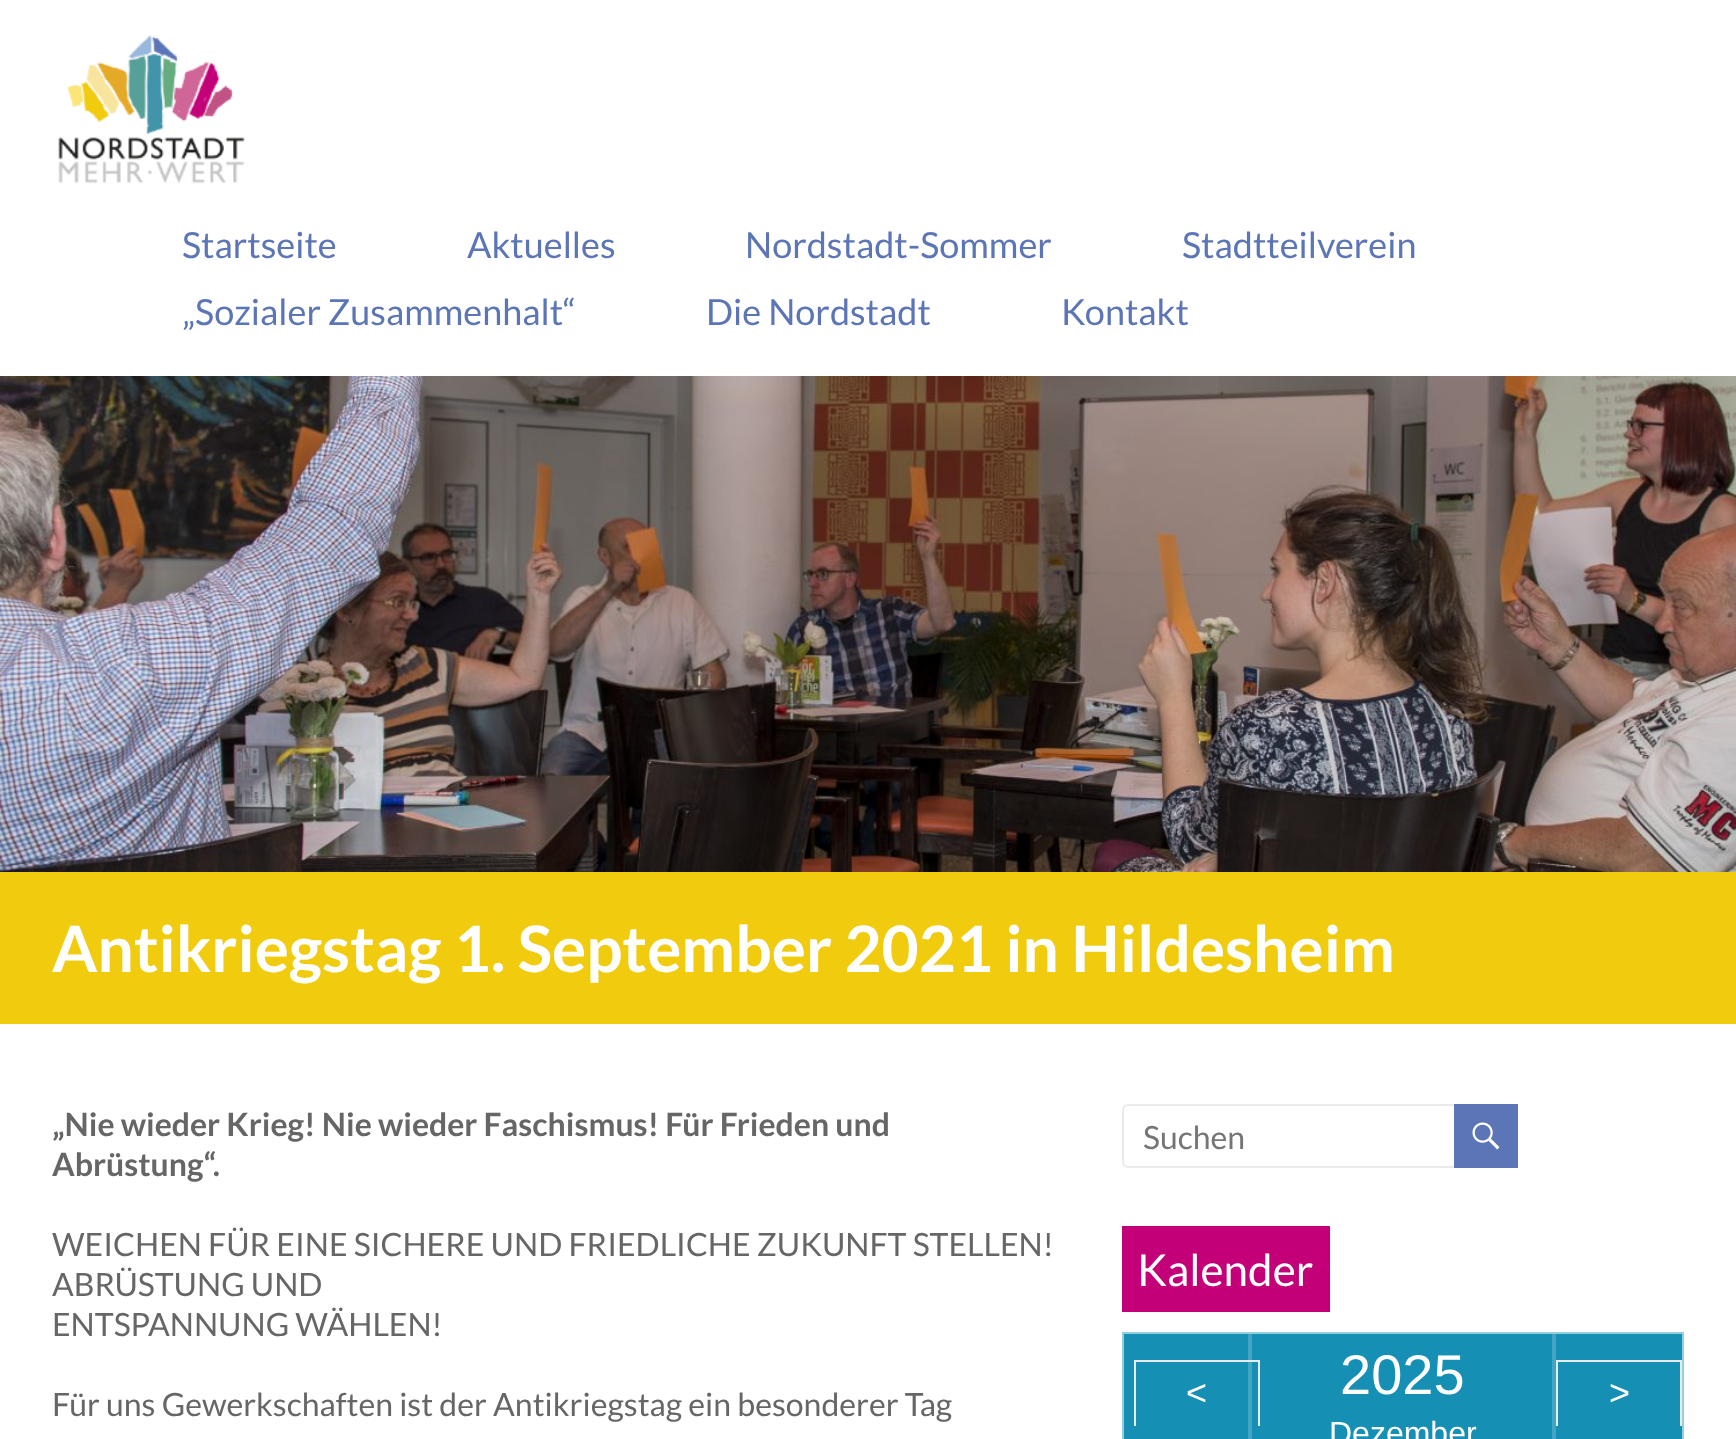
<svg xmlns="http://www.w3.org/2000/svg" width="1736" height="1439">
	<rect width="100%" height="100%" fill="#FFFFFF" />
	<image x="58" y="35" width="187" height="149" href="assets/img1.png" />
	<g font-family="Lato" font-size="36" fill="#5C75B6">
		<text x="182" y="258">Startseite</text>
		<text x="467" y="258">Aktuelles</text>
		<text x="745" y="258">Nordstadt-Sommer</text>
		<text x="1182" y="258">Stadtteilverein</text>
		<text x="182" y="325">„Sozialer Zusammenhalt“</text>
		<text x="706" y="325">Die Nordstadt</text>
		<text x="1061" y="325">Kontakt</text>
	</g>
	<image x="0" y="376" width="1736" height="496" href="assets/img2.png" />
	<rect x="0" y="872" width="1736" height="152" fill="#F1CB0D" />
	<text x="52" y="972" font-family="Lato" font-size="64" font-weight="700" fill="#FFFFFF">Antikriegstag 1. September 2021 in Hildesheim</text>
	<g font-family="Lato" font-size="32" font-weight="700" fill="#666666">
		<text x="52" y="1136">„Nie wieder Krieg! Nie wieder Faschismus! Für Frieden und</text>
		<text x="52" y="1176">Abrüstung“.</text>
	</g>
	<g font-family="Lato" font-size="32" fill="#666666">
		<text x="52" y="1256">WEICHEN FÜR EINE SICHERE UND FRIEDLICHE ZUKUNFT STELLEN!</text>
		<text x="52" y="1296">ABRÜSTUNG UND</text>
		<text x="52" y="1336">ENTSPANNUNG WÄHLEN!</text>
		<text x="52" y="1416">Für uns Gewerkschaften ist der Antikriegstag ein besonderer Tag</text>
	</g>
	<rect x="1123" y="1105" width="334" height="62" rx="5" fill="none" stroke="#EAEAEA" stroke-width="2" />
	<text x="1143" y="1149" font-family="Lato" font-size="32" fill="#757575">Suchen</text>
	<rect x="1454" y="1104" width="64" height="64" fill="#5C75B6" />
	<image x="1472" y="1122" width="28" height="28" href="assets/img3.png" />
	<rect x="1122" y="1226" width="208" height="86" fill="#C40079" />
	<text x="1137" y="1286" font-family="Lato" font-size="44" fill="#FFFFFF">Kalender</text>
	<rect x="1123" y="1333" width="560" height="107" fill="#168FB5" stroke="#91CEDF" stroke-width="2" />
	<rect x="1248" y="1334" width="4" height="105" fill="#44A5C3" />
	<rect x="1134" y="1360" width="126" height="2" fill="#EAEAEA" />
	<rect x="1258" y="1360" width="2" height="66" fill="#EAEAEA" />
	<rect x="1134" y="1360" width="2" height="66" fill="#EAEAEA" />
	<text x="1186" y="1405" font-family="Liberation Sans" font-size="36" fill="#FFFFFF">&lt;</text>
	<rect x="1552" y="1334" width="4" height="105" fill="#44A5C3" />
	<text x="1340" y="1394" font-family="Liberation Sans" font-size="56" fill="#FFFFFF">2025</text>
	<text x="1329" y="1444" font-family="Liberation Sans" font-size="32" fill="#FFFFFF">Dezember</text>
	<rect x="1556" y="1360" width="126" height="2" fill="#EAEAEA" />
	<rect x="1680" y="1360" width="2" height="66" fill="#EAEAEA" />
	<rect x="1556" y="1360" width="2" height="66" fill="#EAEAEA" />
	<text x="1609" y="1405" font-family="Liberation Sans" font-size="36" fill="#FFFFFF">&gt;</text>
</svg>
